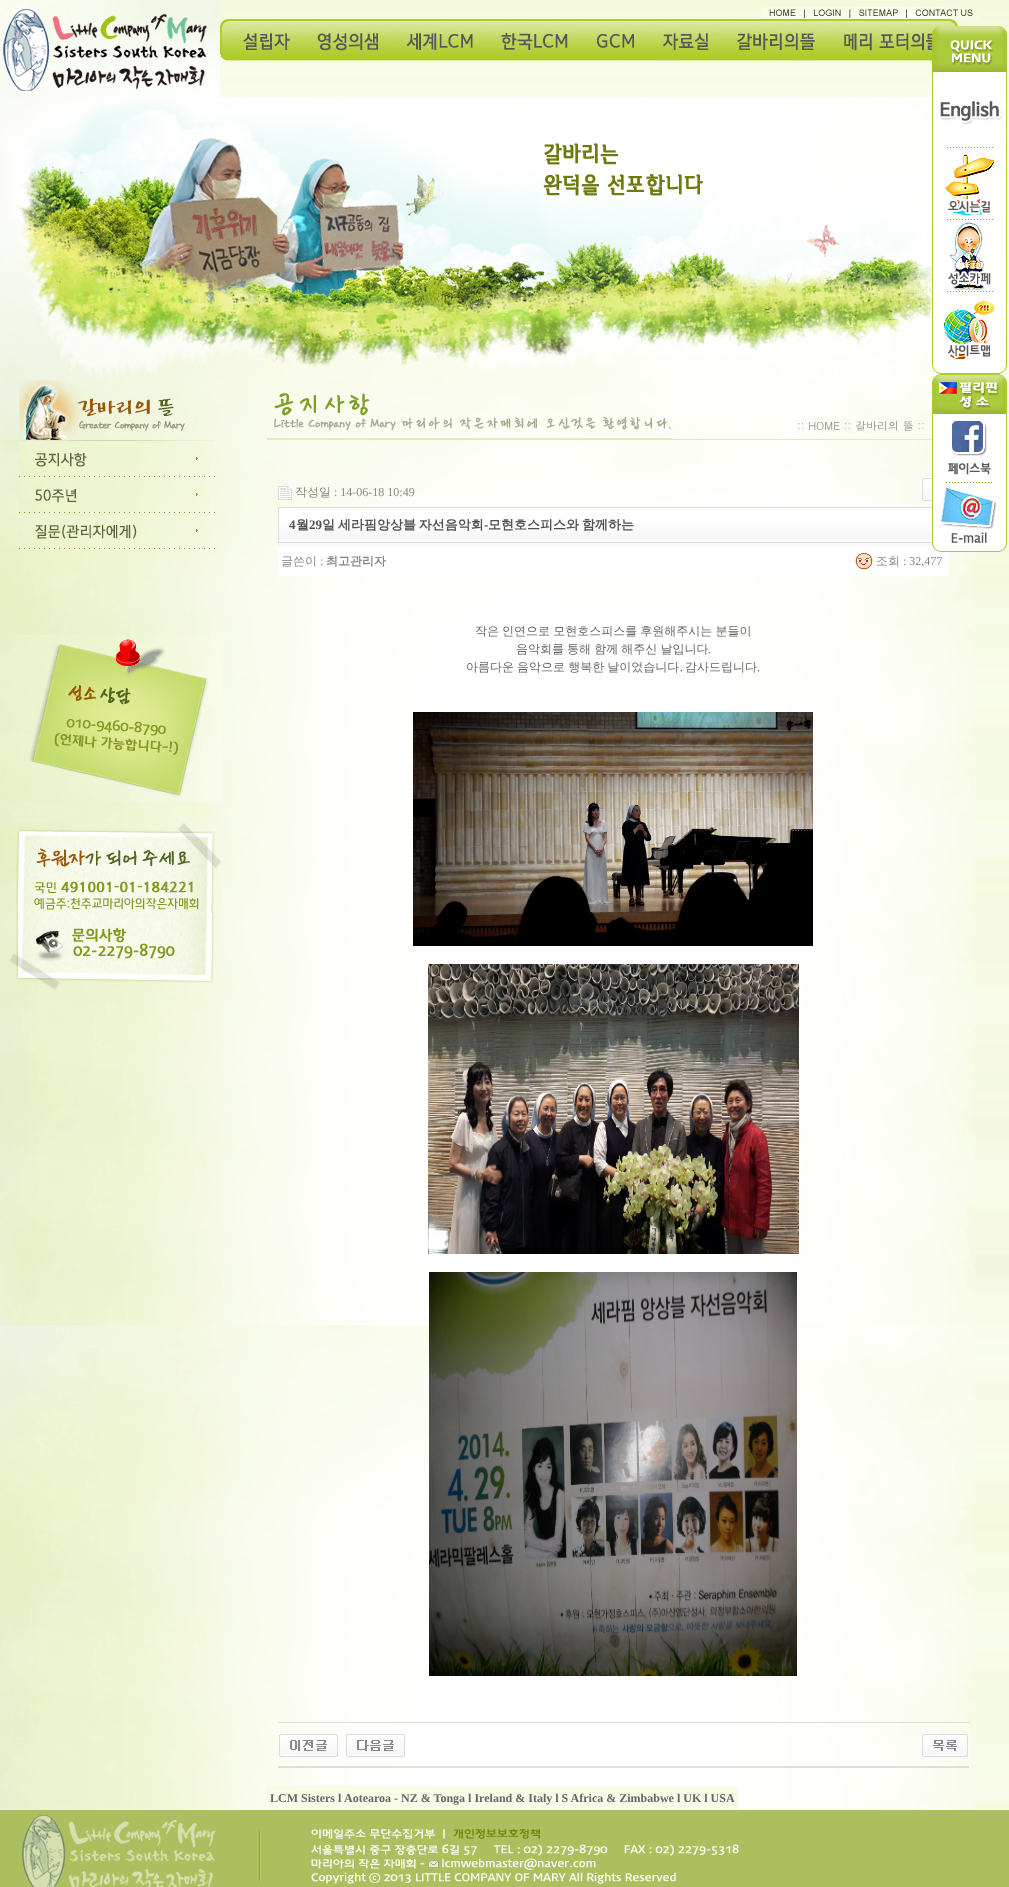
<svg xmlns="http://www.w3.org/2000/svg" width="1009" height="1887">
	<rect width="100%" height="100%" fill="#FFFFFF" />
	<image x="220" y="0" width="789" height="97" href="assets/img1.png" />
	<image x="0" y="0" width="220" height="97" href="assets/img2.png" />
	<image x="761" y="7" width="43" height="12" href="assets/img3.png" />
	<image x="804" y="7" width="45" height="12" href="assets/img4.png" />
	<image x="849" y="7" width="57" height="12" href="assets/img5.png" />
	<image x="906" y="7" width="74" height="12" href="assets/img6.png" />
	<image x="220" y="19" width="84" height="42" href="assets/img7.png" />
	<image x="304" y="19" width="88" height="42" href="assets/img8.png" />
	<image x="392" y="19" width="95" height="42" href="assets/img9.png" />
	<image x="487" y="19" width="95" height="42" href="assets/img10.png" />
	<image x="582" y="19" width="66" height="42" href="assets/img11.png" />
	<image x="648" y="19" width="75" height="42" href="assets/img12.png" />
	<image x="723" y="19" width="106" height="42" href="assets/img13.png" />
	<image x="829" y="19" width="129" height="42" href="assets/img14.png" />
	<image x="932" y="26" width="75" height="46" href="assets/img15.png" />
	<image x="999" y="97" width="10" height="283" href="assets/img23.png" />
	<image x="0" y="97" width="940" height="283" href="assets/img24.png" />
	<image x="932" y="72" width="75" height="76" href="assets/img16.png" />
	<image x="932" y="148" width="75" height="72" href="assets/img17.png" />
	<image x="932" y="220" width="75" height="72" href="assets/img18.png" />
	<image x="932" y="292" width="75" height="82" href="assets/img19.png" />
	<image x="976" y="380" width="33" height="1430" href="assets/img25.png" />
	<image x="0" y="380" width="976" height="1430" href="assets/img26.png" />
	<image x="932" y="374" width="75" height="40" href="assets/img20.png" />
	<image x="932" y="414" width="75" height="69" href="assets/img21.png" />
	<image x="279" y="508" width="654" height="34" href="assets/img37.png" />
	<rect x="278.5" y="507.5" width="690" height="35" fill="none" stroke="#DDDDDD" />
	<rect x="278" y="543" width="655" height="3" fill="#F7F7F7" />
	<rect x="278" y="546" width="671" height="30" fill="#FFFFFF" />
	<image x="932" y="483" width="75" height="69" href="assets/img22.png" />
	<image x="0" y="440" width="19" height="16" href="assets/img27.png" />
	<image x="19" y="380" width="196" height="61" href="assets/img28.png" />
	<image x="19" y="441" width="196" height="36" href="assets/img29.png" />
	<image x="19" y="477" width="196" height="36" href="assets/img30.png" />
	<image x="19" y="513" width="196" height="36" href="assets/img31.png" />
	<image x="0" y="635" width="222" height="167" href="assets/img32.png" />
	<image x="0" y="822" width="222" height="170" href="assets/img33.png" />
	<image x="267" y="393" width="405" height="46" href="assets/img34.png" />
	<text x="797" y="430" font-family="Dotum" font-size="11" fill="#888888">:: HOME :: 갈바리의 뜰 ::</text>
	<rect x="267" y="439" width="665" height="1" fill="#E4EDB7" />
	<image x="278" y="486" width="14" height="14" href="assets/img35.png" />
	<text x="295" y="496" font-family="WenQuanYi Zen Hei" font-size="12" font-weight="500" fill="#888888">작성일</text>
	<text x="334" y="496" font-family="Liberation Serif" font-size="12" fill="#888888">: 14-06-18 10:49</text>
	<image x="921" y="477" width="11" height="25" href="assets/img36.png" />
	<text x="289" y="529" font-family="Liberation Serif" font-size="13" font-weight="700" fill="#505050">4</text>
	<text x="296" y="529" font-family="WenQuanYi Zen Hei" font-size="13" font-weight="700" fill="#505050">월</text>
	<text x="309" y="529" font-family="Liberation Serif" font-size="13" font-weight="700" fill="#505050">29</text>
	<text x="322" y="529" word-spacing="-1" font-family="WenQuanYi Zen Hei" font-size="13" font-weight="700" fill="#505050">일 세라핌앙상블 자선음악회</text>
	<text x="484" y="529" font-family="Liberation Serif" font-size="13" font-weight="700" fill="#505050">-</text>
	<text x="488" y="529" word-spacing="-1" font-family="WenQuanYi Zen Hei" font-size="13" font-weight="700" fill="#505050">모현호스피스와 함께하는</text>
	<text x="281" y="565" font-family="WenQuanYi Zen Hei" font-size="12" font-weight="500" fill="#888888">글쓴이</text>
	<text x="320" y="565" font-family="Liberation Serif" font-size="12" fill="#888888">:</text>
	<text x="326" y="565" font-family="WenQuanYi Zen Hei" font-size="12" font-weight="700" fill="#888888">최고관리자</text>
	<image x="855" y="553" width="18" height="17" href="assets/img38.png" />
	<text x="876" y="565" font-family="WenQuanYi Zen Hei" font-size="12" font-weight="500" fill="#888888">조회</text>
	<text x="903" y="565" font-family="Liberation Serif" font-size="12" fill="#888888">: 32,477</text>
	<g font-family="WenQuanYi Zen Hei" font-size="12" font-weight="500" fill="#666666">
		<text x="475" y="635" word-spacing="-0.5">작은 인연으로 모현호스피스를 후원해주시는 분들이</text>
		<text x="516" y="653" word-spacing="-0.5">음악회를 통해 함께 해주신 날입니다</text>
	</g>
	<text x="708" y="653" font-family="Liberation Serif" font-size="12" fill="#666666">.</text>
	<text x="466" y="671" word-spacing="-0.5" font-family="WenQuanYi Zen Hei" font-size="12" font-weight="500" fill="#666666">아름다운 음악으로 행복한 날이었습니다</text>
	<text x="680" y="671" font-family="Liberation Serif" font-size="12" fill="#666666">.</text>
	<text x="685" y="671" font-family="WenQuanYi Zen Hei" font-size="12" font-weight="500" fill="#666666">감사드립니다</text>
	<text x="757" y="671" font-family="Liberation Serif" font-size="12" fill="#666666">.</text>
	<image x="413" y="712" width="400" height="234" href="assets/img39.png" />
	<image x="428" y="964" width="371" height="290" href="assets/img40.png" />
	<image x="429" y="1272" width="368" height="404" href="assets/img41.png" />
	<rect x="278" y="1722" width="691" height="1" fill="#DDDDDD" />
	<image x="278" y="1733" width="61" height="25" href="assets/img42.png" />
	<image x="345" y="1733" width="60" height="25" href="assets/img43.png" />
	<image x="921" y="1733" width="48" height="25" href="assets/img44.png" />
	<rect x="278" y="1766" width="691" height="2" fill="#DEDEDE" />
	<rect x="267" y="1786" width="471" height="24" fill="#F7FCE7" />
	<g font-family="Liberation Serif" font-size="12" font-weight="700" fill="#666666">
		<text x="270" y="1802">LCM Sisters</text>
		<text x="338" y="1802">l</text>
		<text x="344" y="1802">Aotearoa - NZ &amp; Tonga l Ireland &amp; Italy l S Africa &amp; Zimbabwe l UK l USA</text>
	</g>
	<rect x="0" y="1810" width="1009" height="77" fill="#ACBF5E" />
	<image x="22" y="1815" width="717" height="72" href="assets/img45.png" />
</svg>
